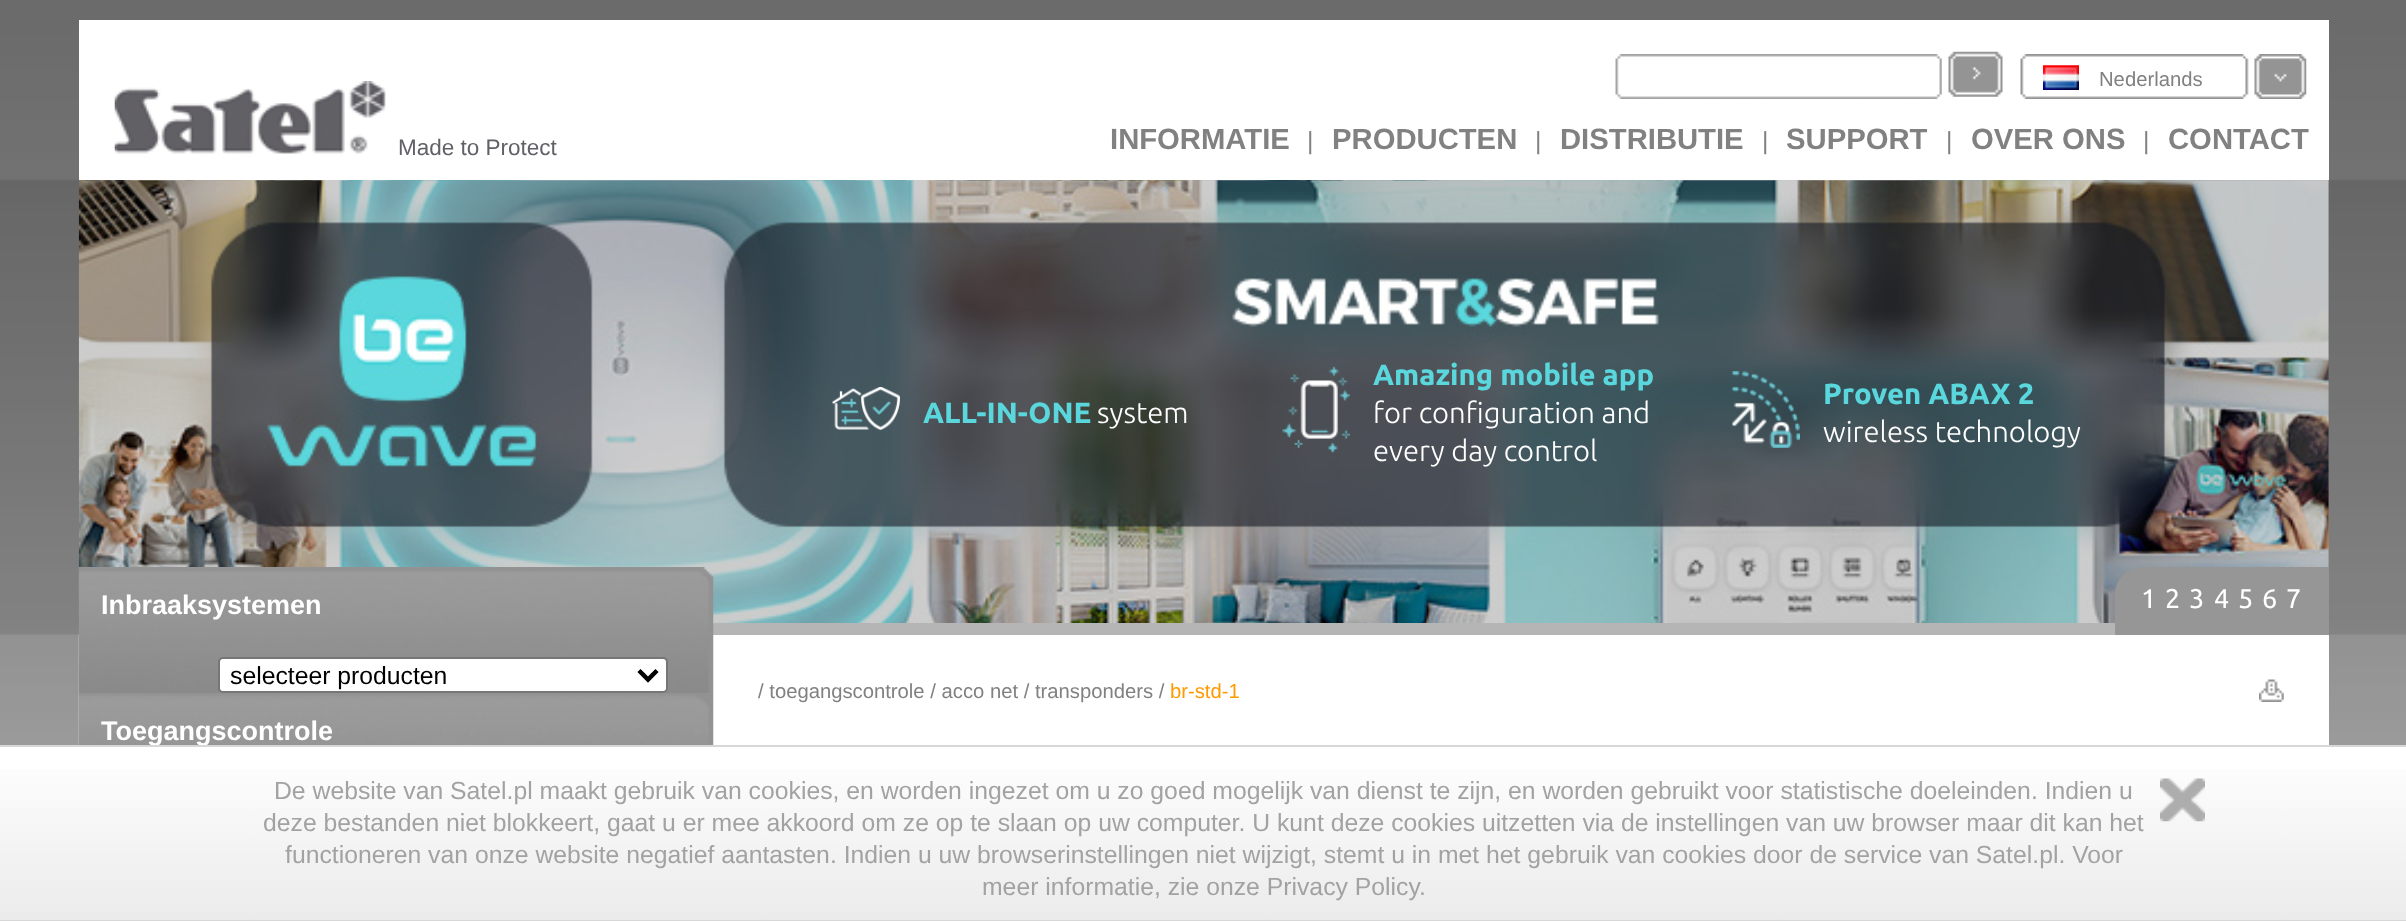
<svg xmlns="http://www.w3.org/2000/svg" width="2406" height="921">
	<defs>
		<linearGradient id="g1" gradientUnits="userSpaceOnUse" x1="1204" y1="747" x2="1204" y2="920"><stop offset="0" stop-color="#FFFFFF" /><stop offset="1" stop-color="#EBEBEB" /></linearGradient>
	</defs>
	<rect width="100%" height="100%" fill="#FFFFFF" />
	<image x="0" y="0" width="2406" height="745" href="assets/img1.png" />
	<rect x="79" y="20" width="2250" height="160" fill="#FFFFFF" />
	<image x="1615" y="54" width="327" height="45" href="assets/img2.png" />
	<image x="1948" y="51" width="55" height="46" href="assets/img3.png" />
	<image x="2020" y="54" width="287" height="45" href="assets/img4.png" />
	<image x="2043" y="65" width="36" height="25" href="assets/img5.png" />
	<text x="2099" y="86" font-family="Liberation Sans" font-size="20.25" fill="#818181">Nederlands</text>
	<image x="114" y="81" width="272" height="73" href="assets/img6.png" />
	<text x="398" y="155" font-family="Liberation Sans" font-size="22.5" fill="#626066">Made to Protect</text>
	<text x="1110" y="149" font-family="Liberation Sans" font-size="29.25" font-weight="700" fill="#818181">INFORMATIE</text>
	<text x="1307" y="149" font-family="Liberation Sans" font-size="24.75" fill="#818181">|</text>
	<text x="1332" y="149" font-family="Liberation Sans" font-size="29.25" font-weight="700" fill="#818181">PRODUCTEN</text>
	<text x="1535" y="149" font-family="Liberation Sans" font-size="24.75" fill="#818181">|</text>
	<text x="1560" y="149" font-family="Liberation Sans" font-size="29.25" font-weight="700" fill="#818181">DISTRIBUTIE</text>
	<text x="1762" y="149" font-family="Liberation Sans" font-size="24.75" fill="#818181">|</text>
	<text x="1786" y="149" font-family="Liberation Sans" font-size="29.25" font-weight="700" fill="#818181">SUPPORT</text>
	<text x="1946" y="149" font-family="Liberation Sans" font-size="24.75" fill="#818181">|</text>
	<text x="1971" y="149" font-family="Liberation Sans" font-size="29.25" font-weight="700" fill="#818181">OVER ONS</text>
	<text x="2143" y="149" font-family="Liberation Sans" font-size="24.75" fill="#818181">|</text>
	<text x="2168" y="149" font-family="Liberation Sans" font-size="29.25" font-weight="700" fill="#818181">CONTACT</text>
	<image x="78" y="180" width="2251" height="454" href="assets/img7.png" />
	<image x="832" y="387" width="68" height="43" href="assets/img8.png" />
	<text x="923" y="423" font-family="Ubuntu" font-size="29.25" font-weight="700" fill="#5AD7DC">ALL-IN-ONE</text>
	<text x="1097" y="423" font-family="Ubuntu" font-size="29.25" font-weight="300" fill="#FFFFFF">system</text>
	<image x="1282" y="366" width="68" height="87" href="assets/img9.png" />
	<text x="1373" y="385" font-family="Ubuntu" font-size="29.25" font-weight="700" fill="#5AD7DC">Amazing mobile app</text>
	<g font-family="Ubuntu" font-size="29.25" font-weight="300" fill="#FFFFFF">
		<text x="1373" y="423">for configuration and</text>
		<text x="1373" y="461">every day control</text>
	</g>
	<image x="1732" y="371" width="68" height="77" href="assets/img10.png" />
	<text x="1823" y="404" font-family="Ubuntu" font-size="29.25" font-weight="700" fill="#5AD7DC">Proven ABAX 2</text>
	<text x="1823" y="442" font-family="Ubuntu" font-size="29.25" font-weight="300" fill="#FFFFFF">wireless technology</text>
	<path d="M2142 567H2329V635H2115V594C2115 579 2127 567 2142 567Z" fill="#969696" />
	<g font-family="Ubuntu" font-size="27" fill="#FFFFFF">
		<text x="2141" y="608">1</text>
		<text x="2165" y="608">2</text>
		<text x="2189" y="608">3</text>
		<text x="2214" y="608">4</text>
		<text x="2238" y="608">5</text>
		<text x="2262" y="608">6</text>
		<text x="2286" y="608">7</text>
	</g>
	<rect x="713" y="623" width="1402" height="12" fill="#B5B5B5" />
	<image x="78" y="634" width="1" height="111" href="assets/img11.png" />
	<rect x="713" y="635" width="1616" height="110" fill="#FFFFFF" />
	<image x="78" y="567" width="636" height="126" href="assets/img12.png" />
	<text x="101" y="614" font-family="Liberation Sans" font-size="27" font-weight="700" fill="#FFFFFF">Inbraaksystemen</text>
	<rect x="219" y="658" width="448" height="34" rx="4" fill="#FFFFFF" stroke="#767676" stroke-width="2" />
	<path d="M639 670.5L648 679.5L657 670.5" fill="none" stroke="#000000" stroke-width="4.5" />
	<text x="230" y="684" font-family="Liberation Sans" font-size="24.75" fill="#000000">selecteer producten</text>
	<image x="78" y="693" width="636" height="52" href="assets/img13.png" />
	<text x="101" y="740" font-family="Liberation Sans" font-size="27" font-weight="700" fill="#FFFFFF">Toegangscontrole</text>
	<text x="758" y="698" font-family="Liberation Sans" font-size="20.25" fill="#818181">/ toegangscontrole / acco net / transponders /</text>
	<text x="1170" y="698" font-family="Liberation Sans" font-size="20.25" fill="#FF9900">br-std-1</text>
	<image x="2259" y="679" width="25" height="23" href="assets/img14.png" />
	<rect x="0" y="769" width="2406" height="151" fill="url(#g1)" />
	<rect x="0" y="745" width="2406" height="2" fill="#D7D7D7" />
	<rect x="0" y="920" width="2406" height="1" fill="#D7D7D7" />
	<g font-family="Liberation Sans" font-size="24.75" fill="#A2A2A2">
		<text x="274" y="799">De website van Satel.pl maakt gebruik van cookies, en worden ingezet om u zo goed mogelijk van dienst te zijn, en worden gebruikt voor statistische doeleinden. Indien u</text>
		<text x="263" y="831">deze bestanden niet blokkeert, gaat u er mee akkoord om ze op te slaan op uw computer. U kunt deze cookies uitzetten via de instellingen van uw browser maar dit kan het</text>
		<text x="285" y="863">functioneren van onze website negatief aantasten. Indien u uw browserinstellingen niet wijzigt, stemt u in met het gebruik van cookies door de service van Satel.pl. Voor</text>
		<text x="982" y="895">meer informatie, zie onze Privacy Policy.</text>
	</g>
	<image x="2160" y="778" width="45" height="44" href="assets/img15.png" />
</svg>
